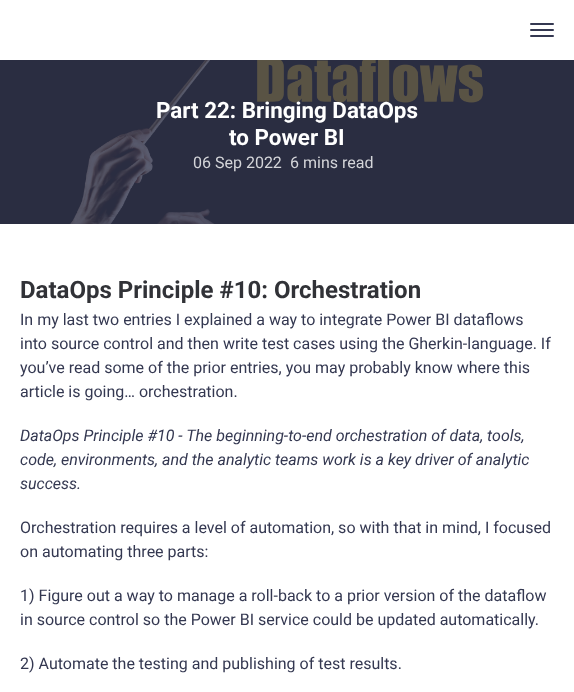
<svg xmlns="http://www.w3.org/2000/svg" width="574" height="692">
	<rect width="100%" height="100%" fill="#FFFFFF" />
	<rect x="530" y="23" width="24" height="2" rx="1" fill="#343851" />
	<rect x="530" y="29" width="24" height="2" rx="1" fill="#343851" />
	<rect x="530" y="35" width="24" height="2" rx="1" fill="#343851" />
	<image x="0" y="60" width="574" height="164" href="assets/img1.png" />
	<g font-family="Roboto" font-size="22.4" font-weight="700" fill="#FFFFFF">
		<text x="156" y="118">Part 22: Bringing DataOps</text>
		<text x="229" y="145">to Power BI</text>
	</g>
	<g font-family="Roboto" font-size="16" fill="#D4D5D9">
		<text x="193" y="168">06 Sep 2022</text>
		<text x="290" y="168">6 mins read</text>
	</g>
	<text x="20" y="298" font-family="Roboto" font-size="24" font-weight="700" fill="#313237">DataOps Principle #10: Orchestration</text>
	<g font-family="Roboto" font-size="16" fill="#343851">
		<text x="20" y="325">In my last two entries I explained a way to integrate Power BI dataflows</text>
		<text x="20" y="349">into source control and then write test cases using the Gherkin-language. If</text>
		<text x="20" y="373">you’ve read some of the prior entries, you may probably know where this</text>
		<text x="20" y="397">article is going… orchestration.</text>
	</g>
	<g font-family="Roboto" font-size="16" font-style="italic" fill="#343851">
		<text x="20" y="441">DataOps Principle #10 - The beginning-to-end orchestration of data, tools,</text>
		<text x="20" y="465">code, environments, and the analytic teams work is a key driver of analytic</text>
		<text x="20" y="489">success.</text>
	</g>
	<g font-family="Roboto" font-size="16" fill="#343851">
		<text x="20" y="533">Orchestration requires a level of automation, so with that in mind, I focused</text>
		<text x="20" y="557">on automating three parts:</text>
		<text x="20" y="601">1) Figure out a way to manage a roll-back to a prior version of the dataflow</text>
		<text x="20" y="625">in source control so the Power BI service could be updated automatically.</text>
		<text x="20" y="669">2) Automate the testing and publishing of test results.</text>
	</g>
</svg>
